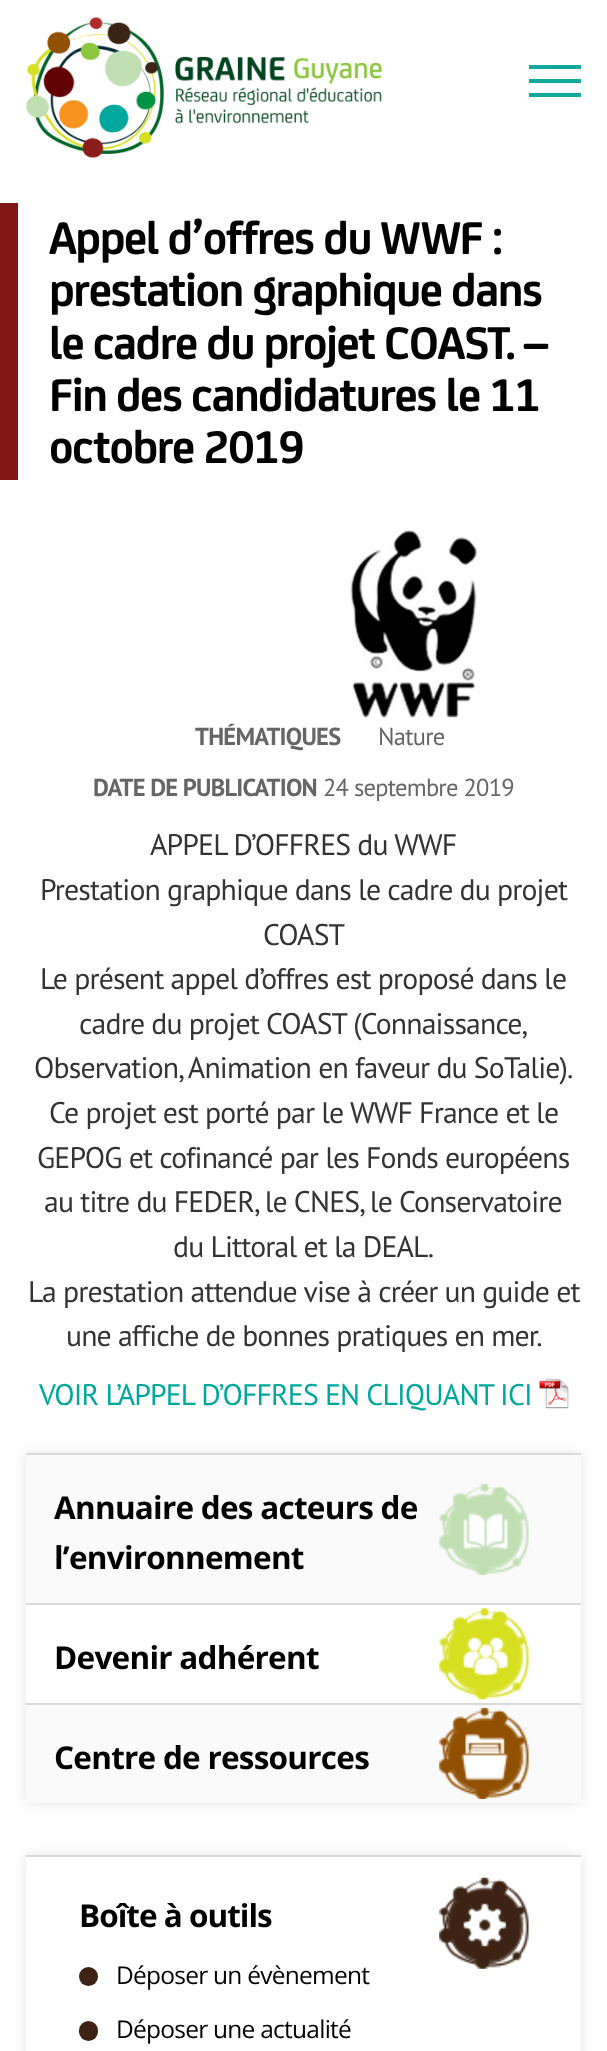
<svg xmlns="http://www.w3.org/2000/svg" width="607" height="2051">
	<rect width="100%" height="100%" fill="#FFFFFF" />
	<image x="26" y="17" width="356" height="141" href="assets/img1.png" />
	<rect x="529" y="65" width="52" height="4" fill="#13A89E" />
	<rect x="529" y="79" width="52" height="4" fill="#13A89E" />
	<rect x="529" y="93" width="52" height="4" fill="#13A89E" />
	<rect x="0" y="203" width="18" height="277" fill="#801914" />
	<g font-family="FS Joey" font-size="49" font-weight="700" letter-spacing="-1.5" fill="#000000">
		<text x="49" y="254">Appel d’offres du WWF :</text>
		<text x="49" y="306">prestation graphique dans</text>
		<text x="49" y="359">le cadre du projet COAST. –</text>
		<text x="49" y="411">Fin des candidatures le 11</text>
		<text x="49" y="463">octobre 2019</text>
	</g>
	<image x="350" y="530" width="129" height="188" href="assets/img2.png" />
	<text x="195" y="745" font-family="PT Sans" font-size="24.5" font-weight="700" letter-spacing="-0.75" fill="#666666">THÉMATIQUES</text>
	<text x="378" y="745" font-family="PT Sans" font-size="24.5" letter-spacing="-0.75" fill="#666666">Nature</text>
	<text x="93" y="796" font-family="PT Sans" font-size="24.5" font-weight="700" letter-spacing="-0.75" fill="#666666">DATE DE PUBLICATION</text>
	<text x="323" y="796" font-family="PT Sans" font-size="24.5" letter-spacing="-0.75" fill="#666666">24 septembre 2019</text>
	<g font-family="PT Sans" font-size="29.75" letter-spacing="-0.85" fill="#333333">
		<text x="150" y="855">APPEL D’OFFRES du WWF</text>
		<text x="40" y="900">Prestation graphique dans le cadre du projet</text>
		<text x="263" y="945">COAST</text>
		<text x="40" y="989">Le présent appel d’offres est proposé dans le</text>
		<text x="79" y="1034">cadre du projet COAST (Connaissance,</text>
		<text x="34" y="1078">Observation, Animation en faveur du SoTalie).</text>
		<text x="49" y="1123">Ce projet est porté par le WWF France et le</text>
		<text x="37" y="1168">GEPOG et cofinancé par les Fonds européens</text>
		<text x="44" y="1212">au titre du FEDER, le CNES, le Conservatoire</text>
		<text x="173" y="1257">du Littoral et la DEAL.</text>
		<text x="28" y="1302">La prestation attendue vise à créer un guide et</text>
		<text x="66" y="1346">une affiche de bonnes pratiques en mer.</text>
	</g>
	<text x="39" y="1405" font-family="PT Sans" font-size="29.75" letter-spacing="-0.85" fill="#00A79D">VOIR L’APPEL D’OFFRES EN CLIQUANT ICI</text>
	<image x="539" y="1379" width="30" height="30" href="assets/img3.png" />
	<rect x="26" y="1453" width="555" height="350" fill="#000000" fill-opacity="0.11" filter="blur(6px)" />
	<rect x="26" y="1455" width="555" height="148" fill="#FAFAFA" />
	<rect x="26" y="1453" width="555" height="2" fill="#DADADA" />
	<g font-family="Open Sans" font-size="31.5" font-weight="700" letter-spacing="-0.75" fill="#000000">
		<text x="54" y="1519">Annuaire des acteurs de</text>
		<text x="54" y="1569">l’environnement</text>
	</g>
	<image x="439" y="1484" width="90" height="91" href="assets/img4.png" />
	<rect x="26" y="1605" width="555" height="98" fill="#FFFFFF" />
	<rect x="26" y="1603" width="555" height="2" fill="#DADADA" />
	<text x="54" y="1669" font-family="Open Sans" font-size="31.5" font-weight="700" letter-spacing="-0.75" fill="#000000">Devenir adhérent</text>
	<image x="439" y="1608" width="90" height="92" href="assets/img5.png" />
	<rect x="26" y="1705" width="555" height="98" fill="#FAFAFA" />
	<rect x="26" y="1703" width="555" height="2" fill="#DADADA" />
	<text x="54" y="1769" font-family="Open Sans" font-size="31.5" font-weight="700" letter-spacing="-0.75" fill="#000000">Centre de ressources</text>
	<image x="439" y="1708" width="90" height="91" href="assets/img6.png" />
	<rect x="26" y="1855" width="555" height="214" fill="#000000" fill-opacity="0.11" filter="blur(6px)" />
	<rect x="26" y="1857" width="555" height="194" fill="#FFFFFF" />
	<rect x="26" y="1855" width="555" height="2" fill="#DADADA" />
	<text x="79" y="1927" font-family="Open Sans" font-size="31.5" font-weight="700" letter-spacing="-1" fill="#000000">Boîte à outils</text>
	<image x="439" y="1877" width="90" height="92" href="assets/img7.png" />
	<circle cx="88.5" cy="1976.5" r="9.5" fill="#3C2313" />
	<text x="116" y="1984" font-family="Open Sans" font-size="24.5" letter-spacing="-0.75" fill="#000000">Déposer un évènement</text>
	<rect x="79" y="2021" width="19" height="20" rx="9.5" fill="#3C2313" />
	<text x="116" y="2038" font-family="Open Sans" font-size="24.5" letter-spacing="-0.75" fill="#000000">Déposer une actualité</text>
</svg>
